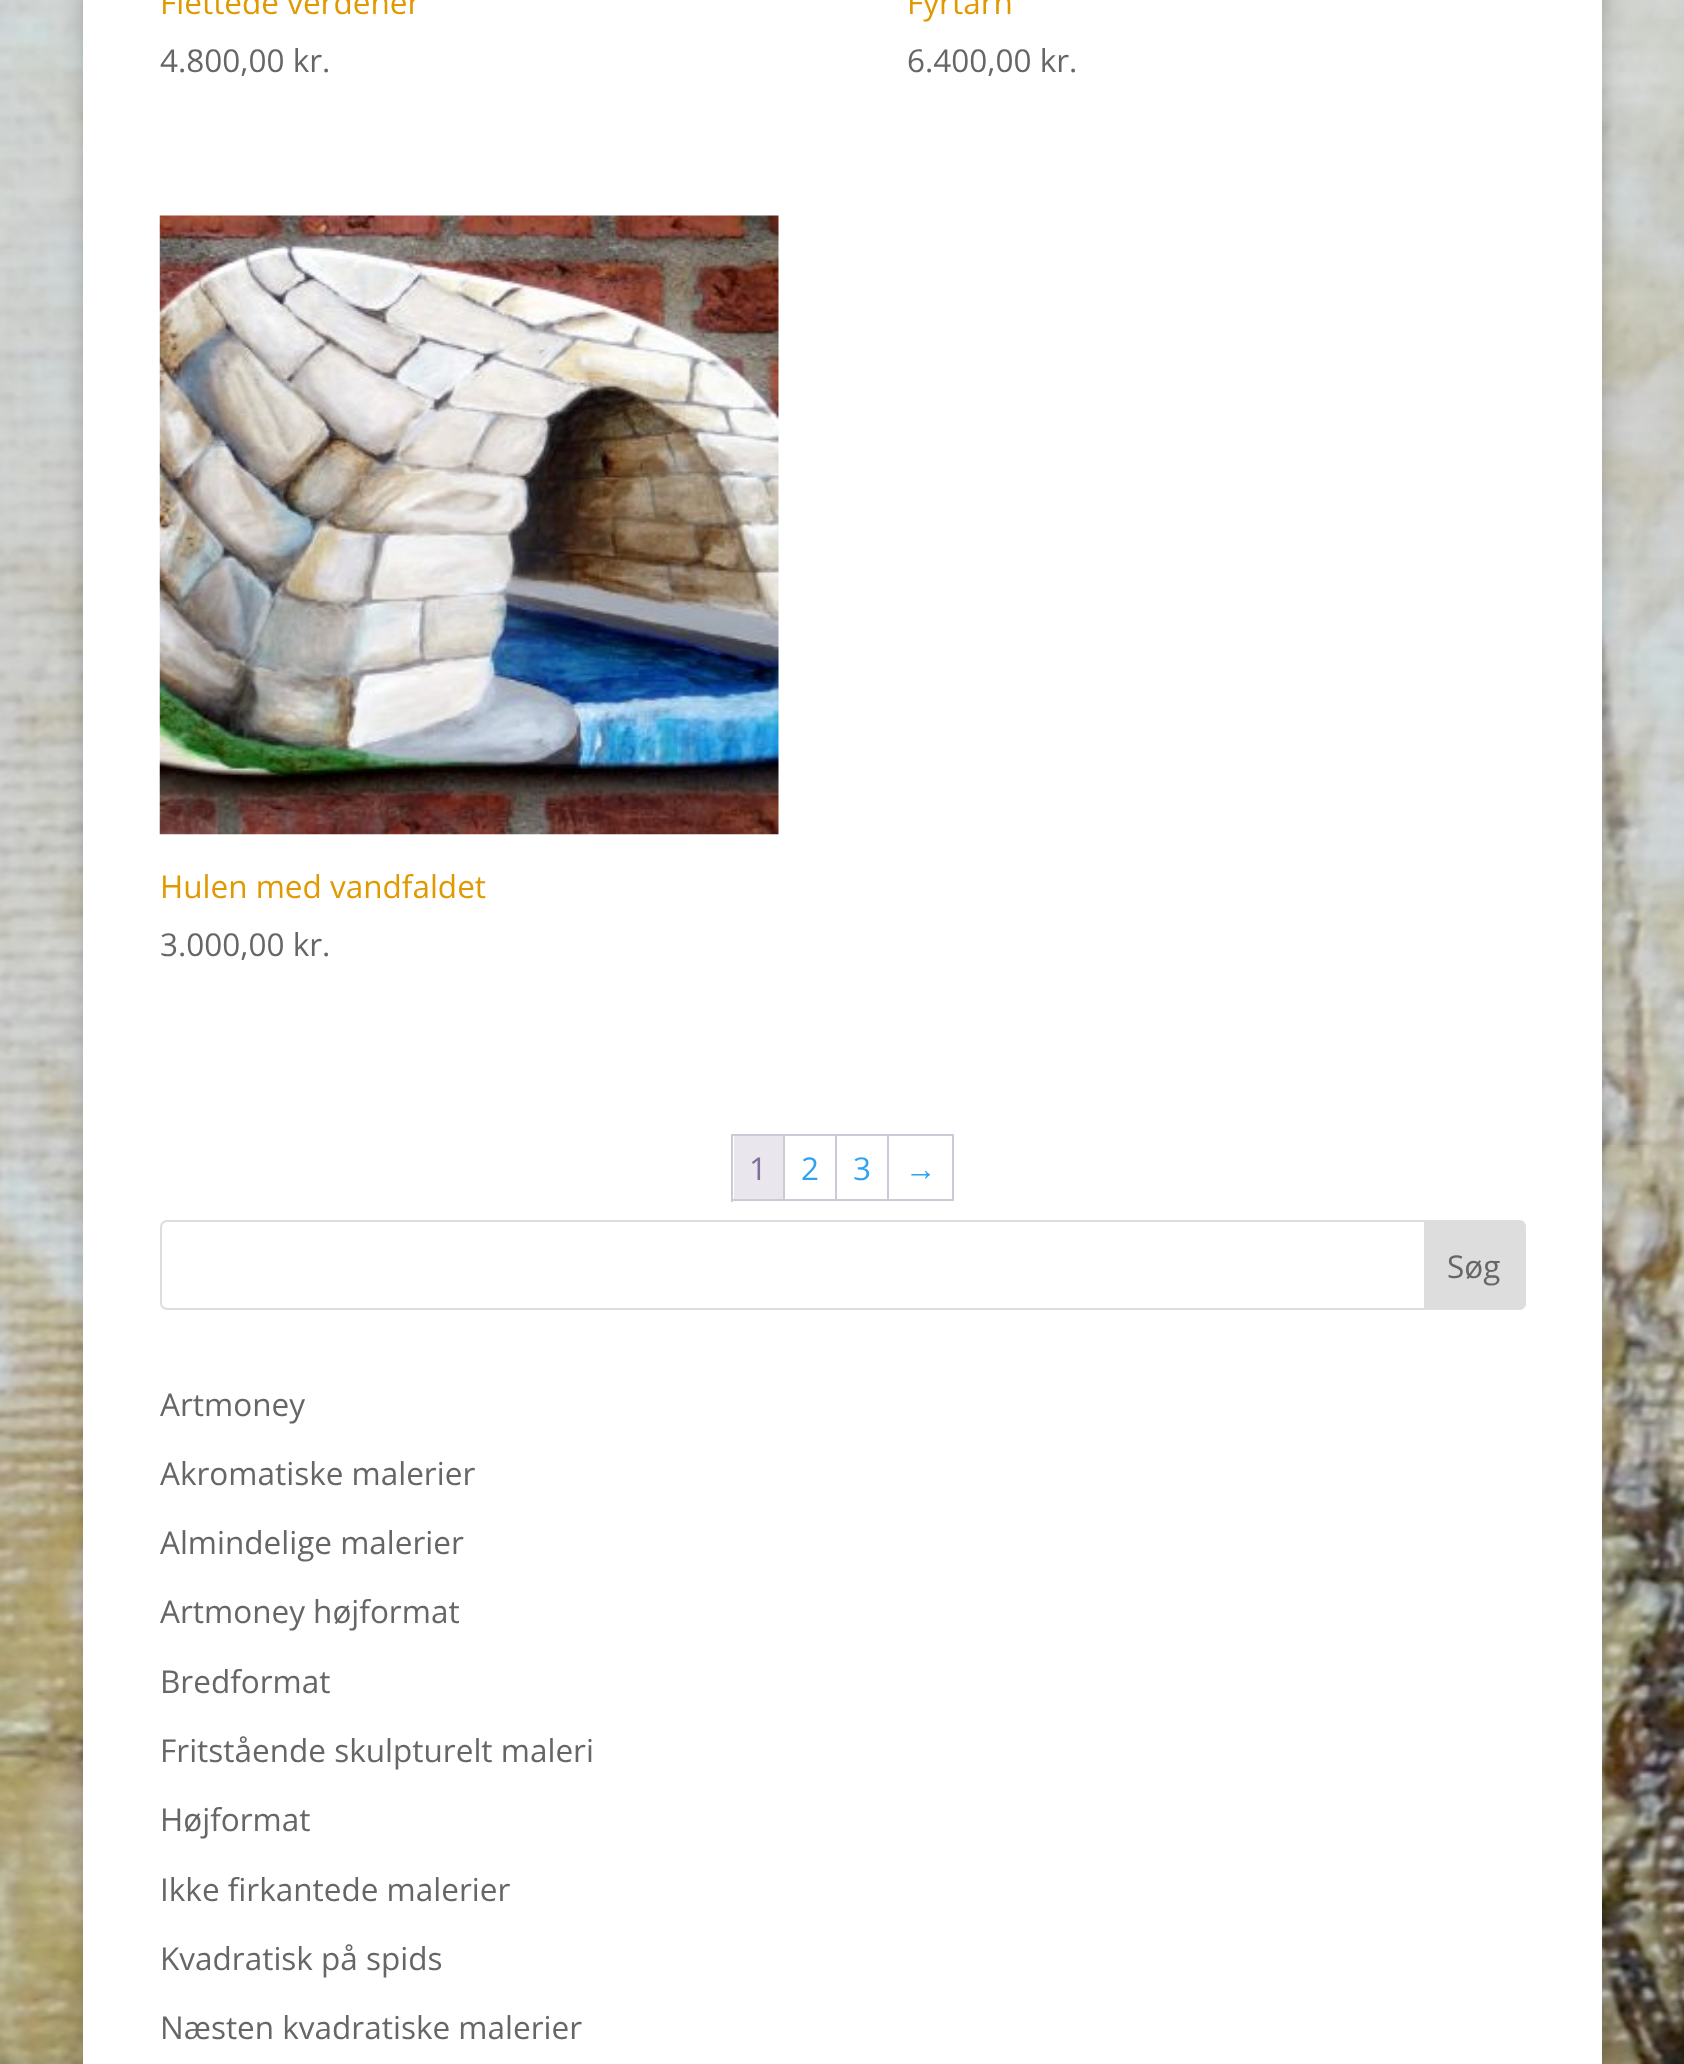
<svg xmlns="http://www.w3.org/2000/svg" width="1684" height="2064">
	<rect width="100%" height="100%" fill="#FFFFFF" />
	<image x="0" y="0" width="1684" height="2064" href="assets/img1.png" />
	<rect x="83" y="-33" width="1519" height="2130" fill="#000000" fill-opacity="0.2" filter="blur(11px)" />
	<rect x="83" y="0" width="1519" height="2064" fill="#FFFFFF" />
	<text x="160" y="14" font-family="Open Sans" font-size="31.5" fill="#E09900">Flettede verdener</text>
	<text x="160" y="72" font-family="Open Sans" font-size="31.5" fill="#666666">4.800,00 kr.</text>
	<text x="907" y="14" font-family="Open Sans" font-size="31.5" fill="#E09900">Fyrtårn</text>
	<text x="907" y="72" font-family="Open Sans" font-size="31.5" fill="#666666">6.400,00 kr.</text>
	<image x="159" y="215" width="620" height="620" href="assets/img2.png" />
	<text x="160" y="898" font-family="Open Sans" font-size="31.5" fill="#E09900">Hulen med vandfaldet</text>
	<text x="160" y="956" font-family="Open Sans" font-size="31.5" fill="#666666">3.000,00 kr.</text>
	<rect x="731" y="1134" width="223" height="2" fill="#CFC8D8" />
	<rect x="731" y="1199" width="223" height="2" fill="#CFC8D8" />
	<rect x="731" y="1134" width="2" height="68" fill="#CFC8D8" />
	<rect x="783" y="1136" width="2" height="63" fill="#CFC8D8" />
	<rect x="734" y="1136" width="49" height="63" fill="#E9E6ED" />
	<text x="749" y="1180" font-family="Open Sans" font-size="31.5" fill="#816E99">1</text>
	<rect x="835" y="1136" width="2" height="63" fill="#CFC8D8" />
	<text x="801" y="1180" font-family="Open Sans" font-size="31.5" fill="#2EA3F2">2</text>
	<rect x="887" y="1136" width="2" height="63" fill="#CFC8D8" />
	<text x="853" y="1180" font-family="Open Sans" font-size="31.5" fill="#2EA3F2">3</text>
	<rect x="952" y="1136" width="2" height="63" fill="#CFC8D8" />
	<text x="905" y="1180" font-family="Liberation Sans" font-size="31.5" fill="#2EA3F2">→</text>
	<rect x="161" y="1221" width="1364" height="88" rx="6" fill="none" stroke="#DDDDDD" stroke-width="2" />
	<path d="M1425 1221H1519C1522.5 1221 1525 1223.5 1525 1227V1303C1525 1306.5 1522.5 1309 1519 1309H1425Z" fill="#DDDDDD" stroke="#DDDDDD" stroke-width="2" />
	<g font-family="Open Sans" font-size="31.5" fill="#666666">
		<text x="1447" y="1278">Søg</text>
		<text x="160" y="1416">Artmoney</text>
		<text x="160" y="1485">Akromatiske malerier</text>
		<text x="160" y="1554">Almindelige malerier</text>
		<text x="160" y="1623">Artmoney højformat</text>
		<text x="160" y="1693">Bredformat</text>
		<text x="160" y="1762">Fritstående skulpturelt maleri</text>
		<text x="160" y="1831">Højformat</text>
		<text x="160" y="1901">Ikke firkantede malerier</text>
		<text x="160" y="1970">Kvadratisk på spids</text>
		<text x="160" y="2039">Næsten kvadratiske malerier</text>
	</g>
</svg>
